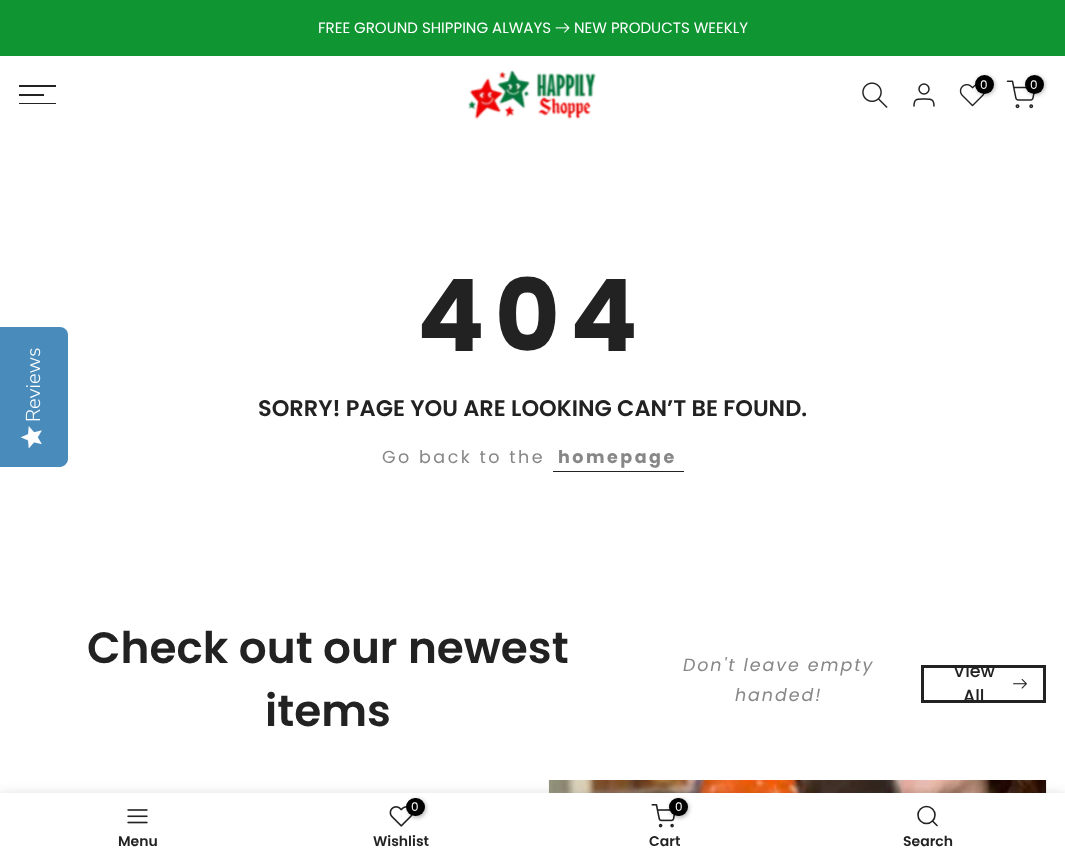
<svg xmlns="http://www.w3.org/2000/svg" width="1065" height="861">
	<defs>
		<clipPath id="clip1"><rect x="921" y="665" width="125" height="38" /></clipPath>
	</defs>
	<rect width="100%" height="100%" fill="#FFFFFF" />
	<path d="M0 467V327H60C64 327 68 330 68 335V459C68 463 64 467 60 467Z" fill="#498CBC" />
	<text x="40" y="422" transform="rotate(-90 40 422)" font-family="Nunito Sans" font-size="20" font-weight="300" fill="#FFFFFF">Reviews</text>
	<image x="20" y="426" width="22" height="23" href="assets/img1.png" />
	<rect x="0" y="0" width="1065" height="56" fill="#109533" />
	<text x="318" y="33" font-family="Poppins" font-size="15" fill="#FFFFFF">FREE GROUND SHIPPING ALWAYS</text>
	<image x="555" y="23" width="15" height="10" href="assets/img2.png" />
	<text x="574" y="33" font-family="Poppins" font-size="15" fill="#FFFFFF">NEW PRODUCTS WEEKLY</text>
	<image x="468" y="70" width="128" height="50" href="assets/img3.png" />
	<image x="862" y="82" width="26" height="26" href="assets/img4.png" />
	<circle cx="924" cy="89" r="5" fill="none" stroke="#222222" stroke-width="1.5" />
	<path d="M934 106C934 98.5 930.5 99 924 99C917 99 914 98.5 914 106" fill="none" stroke="#222222" stroke-width="1.5" stroke-linecap="round" stroke-linejoin="round" />
	<image x="959" y="84" width="26" height="23" href="assets/img5.png" />
	<rect x="976" y="76" width="19" height="19" rx="9.5" fill="#000000" fill-opacity="0.3" filter="blur(2px)" />
	<circle cx="984.5" cy="84.5" r="9.5" fill="#000000" />
	<text x="980" y="89" font-family="Poppins" font-size="12" fill="#FFFFFF">0</text>
	<image x="1006" y="80" width="29" height="29" href="assets/img6.png" />
	<rect x="1026" y="76" width="19" height="19" rx="9.5" fill="#000000" fill-opacity="0.3" filter="blur(2px)" />
	<circle cx="1034.5" cy="84.5" r="9.5" fill="#000000" />
	<text x="1030" y="89" font-family="Poppins" font-size="12" fill="#FFFFFF">0</text>
	<rect x="19" y="85" width="37" height="2" fill="#222222" />
	<rect x="19" y="94" width="25" height="2" fill="#222222" />
	<rect x="19" y="103" width="37" height="1" fill="#222222" />
	<text x="417" y="351" font-family="Poppins" font-size="100" font-weight="700" letter-spacing="10" fill="#222222">404</text>
	<text x="258" y="416" font-family="Poppins" font-size="22.5" font-weight="600" fill="#222222">SORRY! PAGE YOU ARE LOOKING CAN’T BE FOUND.</text>
	<text x="382" y="463" font-family="Poppins" font-size="17.5" letter-spacing="2.5" fill="#878787">Go back to the</text>
	<text x="558" y="463" font-family="Poppins" font-size="17.5" font-weight="700" letter-spacing="2.5" fill="#878787">homepage</text>
	<rect x="553" y="471" width="131" height="1" fill="#222222" />
	<g font-family="Poppins" font-size="43.75" font-weight="600" fill="#222222">
		<text x="87" y="663">Check out our newest</text>
		<text x="265" y="726">items</text>
	</g>
	<g font-family="Poppins" font-size="17.5" font-style="italic" letter-spacing="1.9" fill="#878787">
		<text x="683" y="671">Don't leave empty</text>
		<text x="735" y="701">handed!</text>
	</g>
	<rect x="922.5" y="666.5" width="122" height="35" fill="none" stroke="#222222" stroke-width="3" />
	<g clip-path="url(#clip1)">
		<text x="953" y="677" font-family="Poppins" font-size="17.5" font-weight="500" fill="#222222">View</text>
	</g>
	<image x="1013" y="679" width="14" height="10" href="assets/img7.png" />
	<text x="963" y="702" font-family="Poppins" font-size="17.5" font-weight="500" fill="#222222">All</text>
	<image x="548" y="780" width="499" height="13" href="assets/img8.png" />
	<rect x="0" y="793" width="1065" height="68" fill="#000000" fill-opacity="0.12" filter="blur(5.5px)" />
	<rect x="0" y="793" width="1065" height="68" fill="#FFFFFF" />
	<image x="127" y="809" width="21" height="15" href="assets/img9.png" />
	<text x="118" y="846" font-family="Poppins" font-size="14" font-weight="600" fill="#222222">Menu</text>
	<image x="389" y="806" width="24" height="21" href="assets/img10.png" />
	<rect x="408" y="799" width="18" height="19" rx="9" fill="#000000" fill-opacity="0.3" filter="blur(2px)" />
	<rect x="406" y="798" width="19" height="18" rx="9" fill="#000000" />
	<text x="411" y="811" font-family="Poppins" font-size="12" fill="#FFFFFF">0</text>
	<text x="373" y="846" font-family="Poppins" font-size="14" font-weight="600" fill="#222222">Wishlist</text>
	<image x="651" y="804" width="24" height="24" href="assets/img11.png" />
	<rect x="670" y="799" width="19" height="19" rx="9.5" fill="#000000" fill-opacity="0.3" filter="blur(2px)" />
	<rect x="669" y="798" width="19" height="18" rx="9" fill="#000000" />
	<text x="675" y="811" font-family="Poppins" font-size="12" fill="#FFFFFF">0</text>
	<text x="649" y="846" font-family="Poppins" font-size="14" font-weight="600" fill="#222222">Cart</text>
	<circle cx="926.5" cy="815" r="8.5" fill="none" stroke="#222222" stroke-width="1.6" />
	<path d="M937 825.5L932.5 821" fill="none" stroke="#222222" stroke-width="1.6" stroke-linecap="round" stroke-linejoin="round" />
	<text x="903" y="846" font-family="Poppins" font-size="14" font-weight="600" fill="#222222">Search</text>
</svg>
